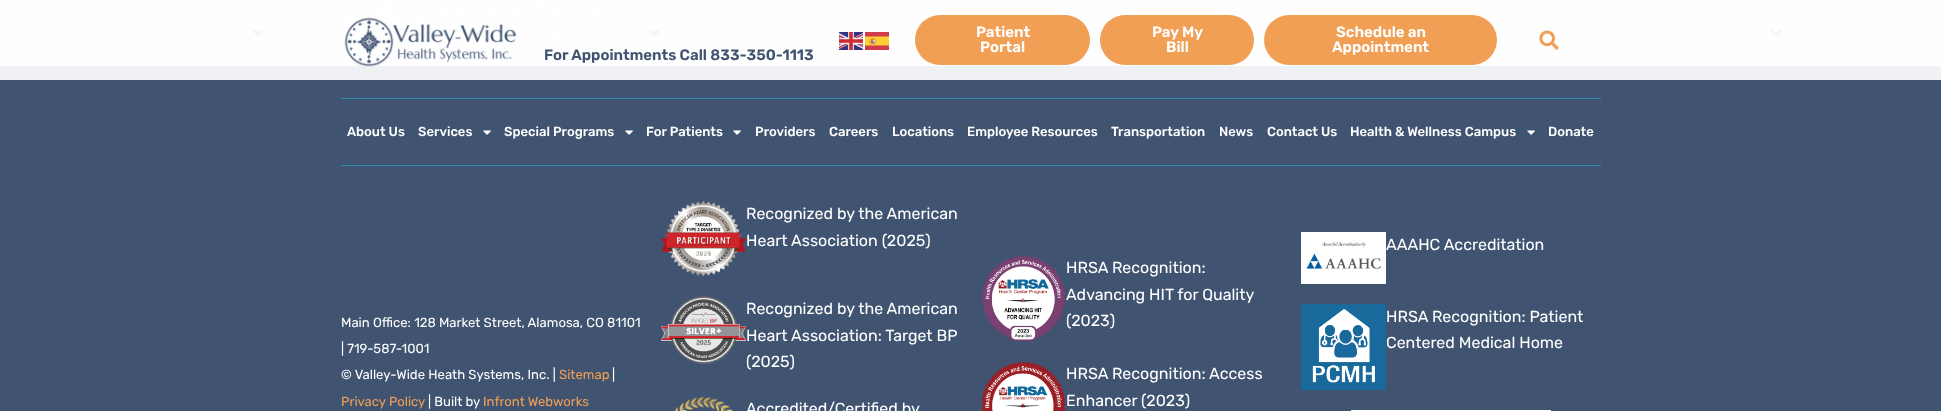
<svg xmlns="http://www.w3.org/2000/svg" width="1941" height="411">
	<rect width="100%" height="100%" fill="#F0F1F4" />
	<rect x="0" y="0" width="1941" height="66" fill="#FEFEFE" />
	<image x="343" y="0" width="271" height="62" href="assets/img7.png" />
	<image x="472" y="29" width="10" height="8" href="assets/img6.png" />
	<image x="344" y="17" width="173" height="50" href="assets/img1.png" />
	<text x="544" y="60" font-family="Rubik" font-size="15" font-weight="600" fill="#405471">For Appointments Call 833-350-1113</text>
	<image x="839" y="32" width="24" height="18" href="assets/img2.png" />
	<image x="865" y="32" width="24" height="18" href="assets/img3.png" />
	<rect x="915" y="15" width="175" height="50" rx="25" fill="#F09F54" />
	<g font-family="Rubik" font-size="15" font-weight="600" fill="#FFFFFF">
		<text x="976" y="37">Patient</text>
		<text x="980" y="52">Portal</text>
	</g>
	<rect x="1100" y="15" width="154" height="50" rx="25" fill="#F09F54" />
	<g font-family="Rubik" font-size="15" font-weight="600" fill="#FFFFFF">
		<text x="1152" y="37">Pay My</text>
		<text x="1166" y="52">Bill</text>
	</g>
	<rect x="1264" y="15" width="233" height="50" rx="25" fill="#F09F54" />
	<g font-family="Rubik" font-size="15" font-weight="600" fill="#FFFFFF">
		<text x="1336" y="37">Schedule an</text>
		<text x="1332" y="52">Appointment</text>
	</g>
	<image x="1539" y="30" width="20" height="20" href="assets/img4.png" />
	<image x="253" y="29" width="10" height="8" href="assets/img5.png" />
	<image x="649" y="29" width="10" height="8" href="assets/img5.png" />
	<image x="1771" y="29" width="10" height="8" href="assets/img5.png" />
	<rect x="0" y="80" width="1941" height="331" fill="#405471" />
	<rect x="341" y="98" width="1260" height="1" fill="#2D89AD" />
	<rect x="341" y="165" width="1260" height="1" fill="#2D89AD" />
	<g font-family="Rubik" font-size="13.1" font-weight="500" fill="#FFFFFF">
		<text x="347" y="136">About Us</text>
		<text x="418" y="136">Services</text>
	</g>
	<image x="483" y="130" width="8" height="5" href="assets/img8.png" />
	<text x="504" y="136" font-family="Rubik" font-size="13.1" font-weight="500" fill="#FFFFFF">Special Programs</text>
	<image x="625" y="130" width="8" height="5" href="assets/img8.png" />
	<text x="646" y="136" font-family="Rubik" font-size="13.1" font-weight="500" fill="#FFFFFF">For Patients</text>
	<image x="733" y="130" width="8" height="5" href="assets/img8.png" />
	<g font-family="Rubik" font-size="13.1" font-weight="500" fill="#FFFFFF">
		<text x="755" y="136">Providers</text>
		<text x="829" y="136">Careers</text>
		<text x="892" y="136">Locations</text>
		<text x="967" y="136">Employee Resources</text>
		<text x="1111" y="136">Transportation</text>
		<text x="1219" y="136">News</text>
		<text x="1267" y="136">Contact Us</text>
		<text x="1350" y="136">Health &amp; Wellness Campus</text>
	</g>
	<image x="1527" y="130" width="8" height="5" href="assets/img8.png" />
	<text x="1548" y="136" font-family="Rubik" font-size="13.1" font-weight="500" fill="#FFFFFF">Donate</text>
	<g font-family="Rubik" font-size="13.1" fill="#FFFFFF">
		<text x="341" y="327">Main Office: 128 Market Street, Alamosa, CO 81101</text>
		<text x="341" y="353">| 719-587-1001</text>
		<text x="341" y="379">© Valley-Wide Heath Systems, Inc. |</text>
	</g>
	<text x="559" y="379" font-family="Rubik" font-size="13.1" fill="#F09F54">Sitemap</text>
	<text x="612" y="379" font-family="Rubik" font-size="13.1" fill="#FFFFFF">|</text>
	<text x="341" y="406" font-family="Rubik" font-size="13.1" fill="#F09F54">Privacy Policy</text>
	<text x="428" y="406" font-family="Rubik" font-size="13.1" fill="#FFFFFF">| Built by</text>
	<text x="483" y="406" font-family="Rubik" font-size="13.1" fill="#F09F54">Infront Webworks</text>
	<image x="661" y="201" width="85" height="75" href="assets/img9.png" />
	<g font-family="Rubik" font-size="16" fill="#FFFFFF">
		<text x="746" y="219">Recognized by the American</text>
		<text x="746" y="246">Heart Association (2025)</text>
	</g>
	<image x="661" y="296" width="85" height="68" href="assets/img10.png" />
	<g font-family="Rubik" font-size="16" fill="#FFFFFF">
		<text x="746" y="314">Recognized by the American</text>
		<text x="746" y="341">Heart Association: Target BP</text>
		<text x="746" y="367">(2025)</text>
	</g>
	<image x="675" y="396" width="59" height="15" href="assets/img11.png" />
	<text x="746" y="414" font-family="Rubik" font-size="16" fill="#FFFFFF">Accredited/Certified by</text>
	<image x="981" y="255" width="85" height="86" href="assets/img12.png" />
	<g font-family="Rubik" font-size="16" fill="#FFFFFF">
		<text x="1066" y="273">HRSA Recognition:</text>
		<text x="1066" y="300">Advancing HIT for Quality</text>
		<text x="1066" y="326">(2023)</text>
	</g>
	<image x="981" y="361" width="85" height="50" href="assets/img13.png" />
	<g font-family="Rubik" font-size="16" fill="#FFFFFF">
		<text x="1066" y="379">HRSA Recognition: Access</text>
		<text x="1066" y="406">Enhancer (2023)</text>
	</g>
	<image x="1301" y="232" width="85" height="52" href="assets/img14.png" />
	<text x="1386" y="250" font-family="Rubik" font-size="16" fill="#FFFFFF">AAAHC Accreditation</text>
	<image x="1301" y="304" width="85" height="86" href="assets/img15.png" />
	<g font-family="Rubik" font-size="16" fill="#FFFFFF">
		<text x="1386" y="322">HRSA Recognition: Patient</text>
		<text x="1386" y="348">Centered Medical Home</text>
	</g>
	<image x="1351" y="410" width="200" height="1" href="assets/img16.png" />
</svg>
